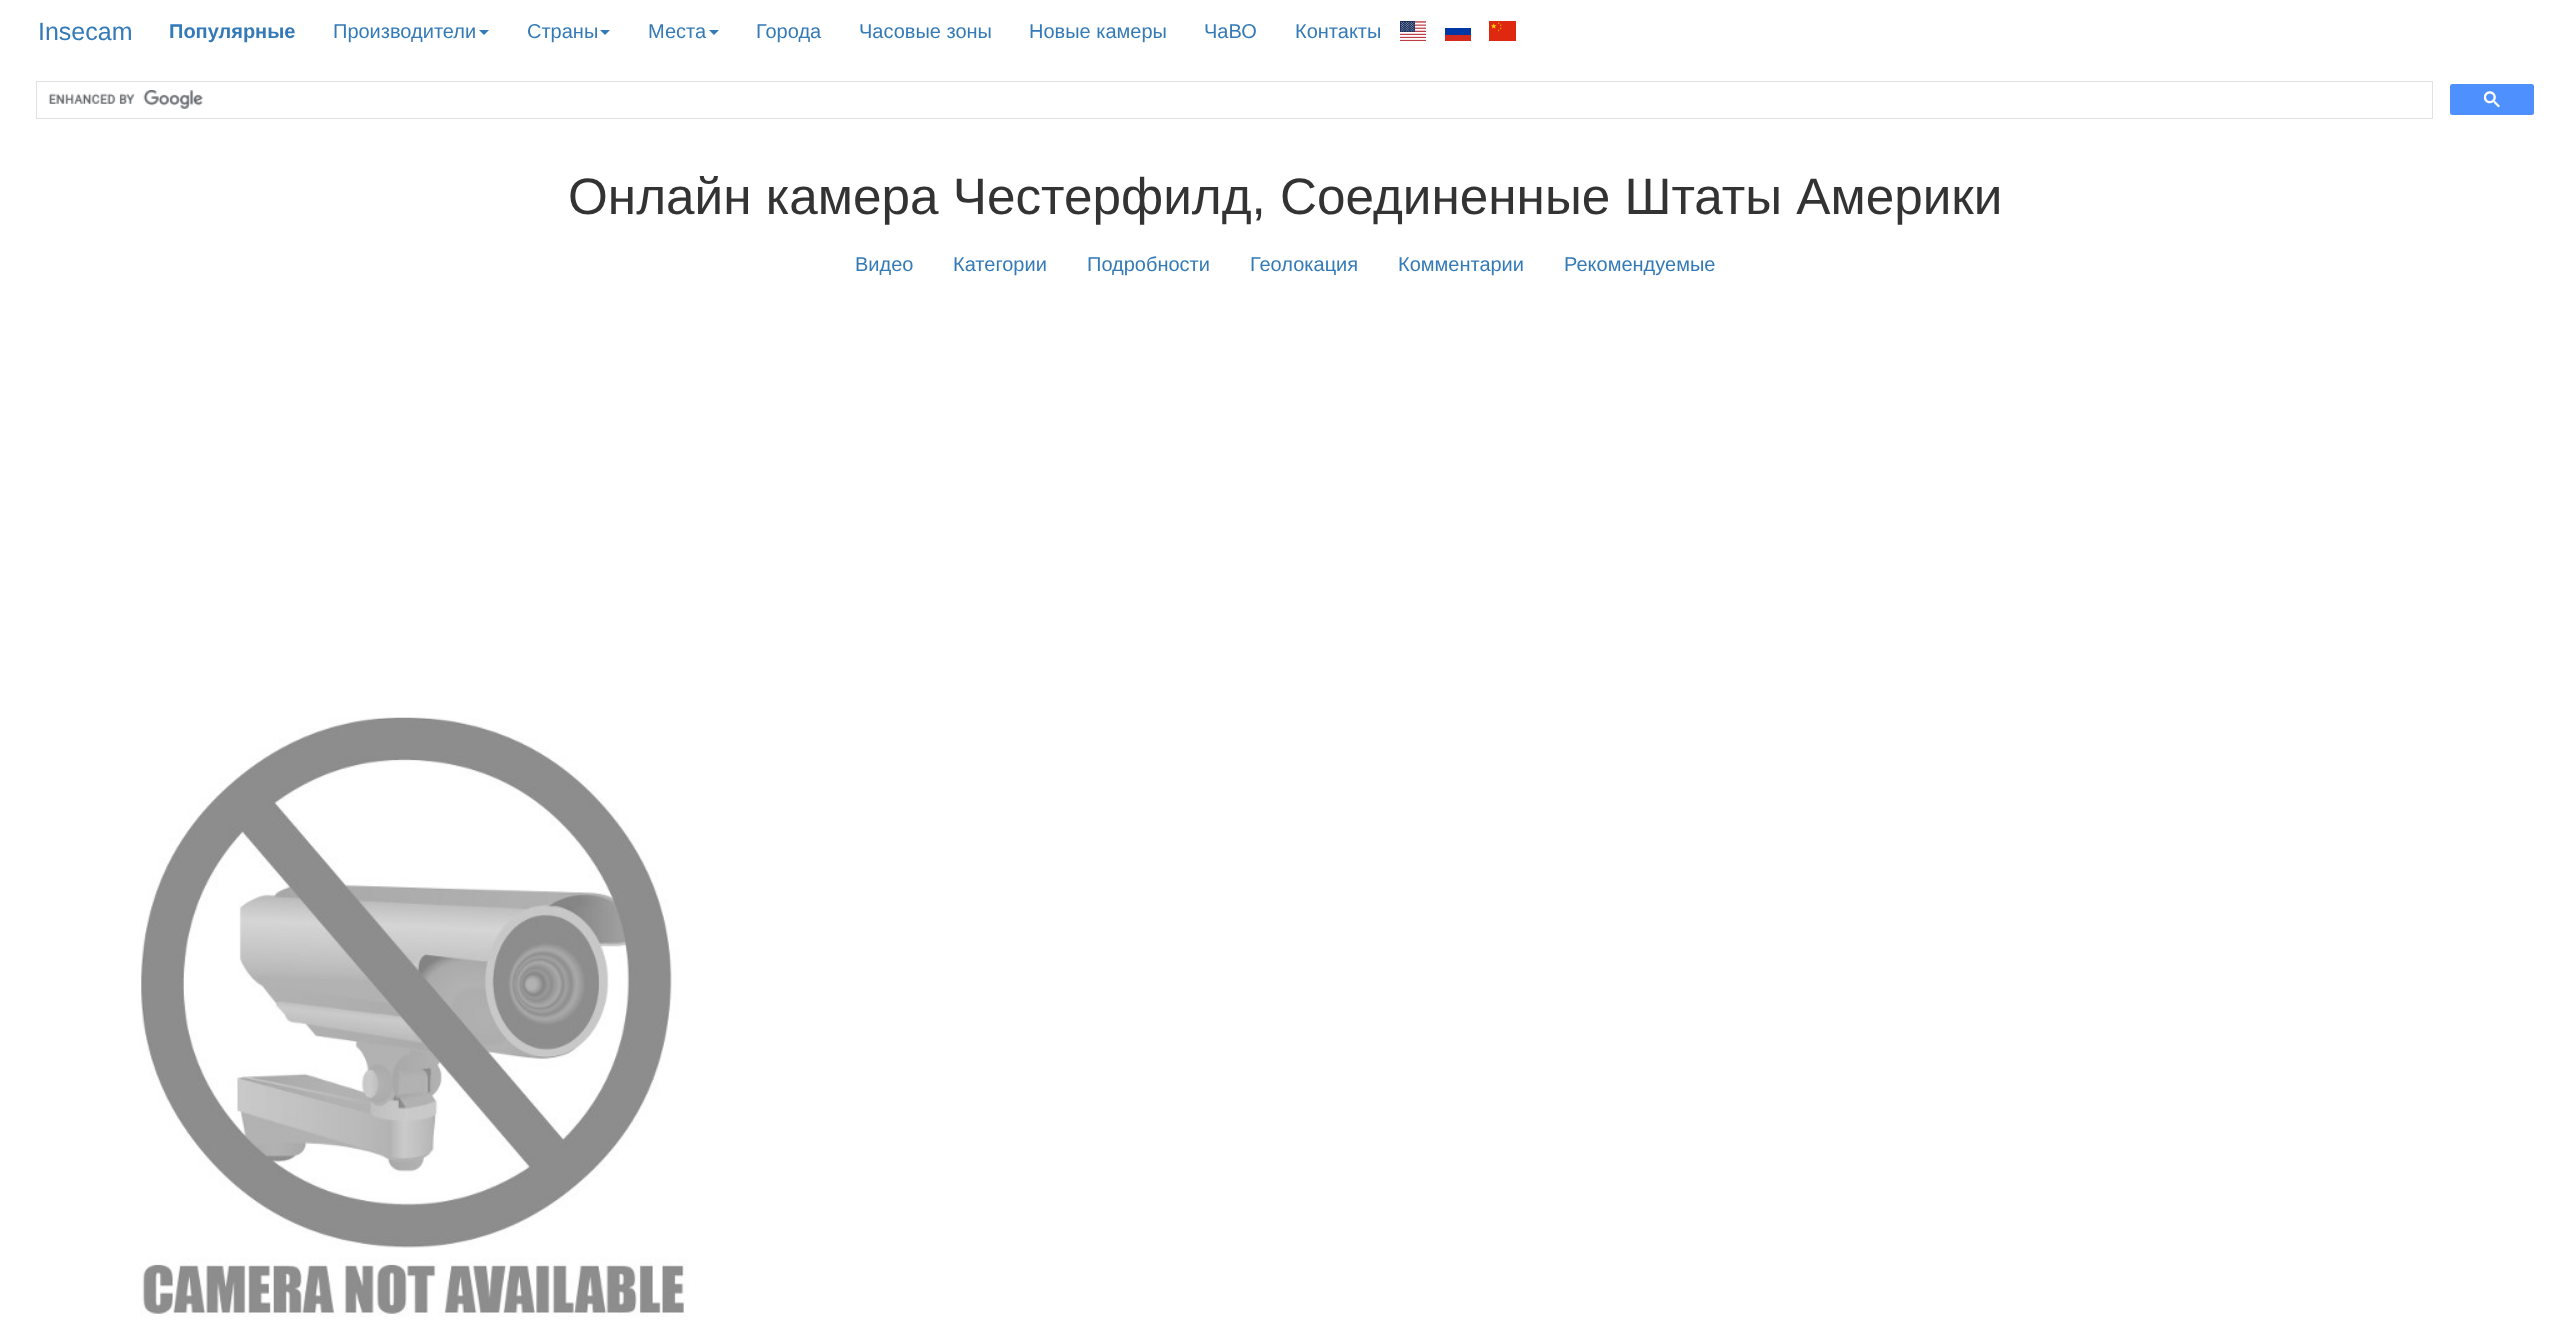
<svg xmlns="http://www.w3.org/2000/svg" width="2570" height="1344">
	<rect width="100%" height="100%" fill="#FFFFFF" />
	<text x="38" y="40" font-family="Liberation Sans" font-size="25" fill="#337AB7">Insecam</text>
	<text x="169" y="38" font-family="Liberation Sans" font-size="20" font-weight="700" fill="#337AB7">Популярные</text>
	<text x="333" y="38" font-family="Liberation Sans" font-size="20" fill="#337AB7">Производители</text>
	<path d="M479 30H489L484 35Z" fill="#337AB7" />
	<text x="527" y="38" font-family="Liberation Sans" font-size="20" fill="#337AB7">Страны</text>
	<path d="M600 30H610L605 35Z" fill="#337AB7" />
	<text x="648" y="38" font-family="Liberation Sans" font-size="20" fill="#337AB7">Места</text>
	<path d="M709 30H719L714 35Z" fill="#337AB7" />
	<g font-family="Liberation Sans" font-size="20" fill="#337AB7">
		<text x="756" y="38">Города</text>
		<text x="859" y="38">Часовые зоны</text>
		<text x="1029" y="38">Новые камеры</text>
		<text x="1204" y="38">ЧаВО</text>
		<text x="1295" y="38">Контакты</text>
	</g>
	<image x="1400" y="21" width="26" height="20" href="assets/img1.png" />
	<rect x="1445" y="28" width="26" height="7" fill="#0039A6" />
	<rect x="1445" y="35" width="26" height="6" fill="#D52B1E" />
	<image x="1489" y="21" width="27" height="20" href="assets/img2.png" />
	<rect x="36.5" y="81.5" width="2396" height="37" fill="none" stroke="#DFE1E5" />
	<image x="48" y="90" width="155" height="19" href="assets/img3.png" />
	<rect x="2450" y="84" width="84" height="31" rx="2.5" fill="#4D90FE" />
	<image x="2484" y="91" width="16" height="17" href="assets/img4.png" />
	<text x="568" y="214" font-family="Liberation Sans" font-size="51.25" fill="#333333">Онлайн камера Честерфилд, Соединенные Штаты Америки</text>
	<g font-family="Liberation Sans" font-size="20" fill="#337AB7">
		<text x="855" y="271">Видео</text>
		<text x="953" y="271">Категории</text>
		<text x="1087" y="271">Подробности</text>
		<text x="1250" y="271">Геолокация</text>
		<text x="1398" y="271">Комментарии</text>
		<text x="1564" y="271">Рекомендуемые</text>
	</g>
	<image x="140" y="717" width="549" height="600" href="assets/img5.png" />
</svg>
